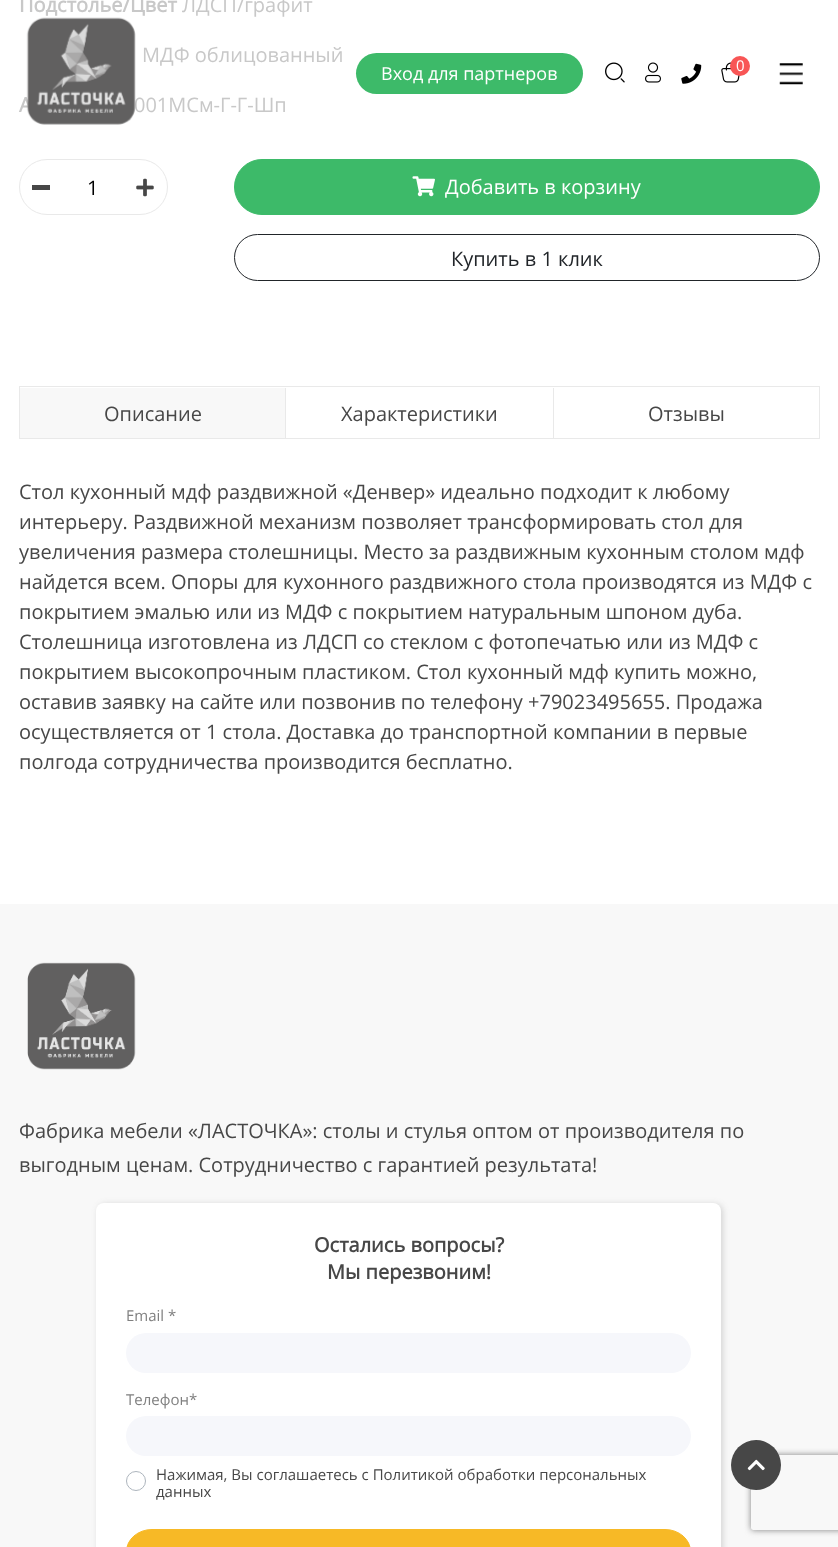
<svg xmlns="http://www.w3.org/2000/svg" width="838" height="1547">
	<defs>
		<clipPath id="clip1"><path d="M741 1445H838V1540H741ZM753.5 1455H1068.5C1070 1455 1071 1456 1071 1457.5V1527.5C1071 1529 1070 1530 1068.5 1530H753.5C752 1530 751 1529 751 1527.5V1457.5C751 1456 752 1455 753.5 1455Z" clip-rule="evenodd" /></clipPath>
	</defs>
	<rect width="100%" height="100%" fill="#FFFFFF" />
	<text x="19" y="12" font-family="Open Sans" font-size="20" font-weight="700" fill="#C8C8C8">Подстолье/Цвет</text>
	<g font-family="Open Sans" font-size="20" fill="#C8C8C8">
		<text x="182" y="12">ЛДСП/графит</text>
		<text x="142" y="62">МДФ облицованный</text>
	</g>
	<text x="19" y="112" font-family="Open Sans" font-size="20" font-weight="700" fill="#C8C8C8">А</text>
	<text x="134" y="112" font-family="Open Sans" font-size="20" fill="#C8C8C8">001МСм-Г-Г-Шп</text>
	<rect x="19.5" y="159.5" width="148" height="55" rx="27.5" fill="none" stroke="#E9E9E9" />
	<rect x="32" y="185" width="18" height="5" fill="#474747" />
	<text x="87" y="195" font-family="Open Sans" font-size="20" fill="#000000">1</text>
	<image x="136" y="178" width="18" height="19" href="assets/img1.png" />
	<rect x="234.5" y="159.5" width="585" height="55" rx="27.5" fill="#3DBA69" stroke="#3DBA69" />
	<image x="412" y="176" width="23" height="21" href="assets/img2.png" />
	<text x="445" y="194" font-family="Open Sans" font-size="20" fill="#FFFFFF">Добавить в корзину</text>
	<rect x="234.5" y="234.5" width="585" height="46" rx="23" fill="none" stroke="#212529" />
	<text x="451" y="266" font-family="Open Sans" font-size="20" fill="#212529">Купить в 1 клик</text>
	<rect x="19.5" y="386.5" width="800" height="52" fill="none" stroke="#E9E9E9" />
	<rect x="285" y="388" width="1" height="50" fill="#E9E9E9" />
	<rect x="20" y="388" width="265" height="50" fill="#F8F8F8" />
	<text x="104" y="421" font-family="Open Sans" font-size="20" fill="#474747">Описание</text>
	<rect x="553" y="388" width="1" height="50" fill="#E9E9E9" />
	<g font-family="Open Sans" font-size="20" fill="#474747">
		<text x="341" y="421">Характеристики</text>
		<text x="648" y="421">Отзывы</text>
		<text x="19" y="499">Стол кухонный мдф раздвижной «Денвер» идеально подходит к любому</text>
		<text x="19" y="529">интерьеру. Раздвижной механизм позволяет трансформировать стол для</text>
		<text x="19" y="559">увеличения размера столешницы. Место за раздвижным кухонным столом мдф</text>
		<text x="19" y="589">найдется всем. Опоры для кухонного раздвижного стола производятся из МДФ с</text>
		<text x="19" y="619">покрытием эмалью или из МДФ с покрытием натуральным шпоном дуба.</text>
		<text x="19" y="649">Столешница изготовлена из ЛДСП со стеклом с фотопечатью или из МДФ с</text>
		<text x="19" y="679">покрытием высокопрочным пластиком. Стол кухонный мдф купить можно,</text>
		<text x="19" y="709">оставив заявку на сайте или позвонив по телефону +79023495655. Продажа</text>
		<text x="19" y="739">осуществляется от 1 стола. Доставка до транспортной компании в первые</text>
		<text x="19" y="769">полгода сотрудничества производится бесплатно.</text>
	</g>
	<image x="26" y="17" width="110" height="108" href="assets/img3.png" />
	<rect x="356" y="53" width="227" height="41" rx="20.5" fill="#3DBA69" />
	<text x="381" y="80" font-family="Open Sans" font-size="18" fill="#FFFFFF">Вход для партнеров</text>
	<image x="605" y="62" width="20" height="21" href="assets/img4.png" />
	<image x="645" y="62" width="16" height="21" href="assets/img5.png" />
	<image x="681" y="63" width="21" height="21" href="assets/img6.png" />
	<image x="721" y="62" width="19" height="21" href="assets/img7.png" />
	<circle cx="740" cy="66" r="10" fill="#F85555" />
	<text x="736" y="71" font-family="Open Sans" font-size="15" fill="#FFFFFF">0</text>
	<image x="779" y="63" width="24" height="22" href="assets/img8.png" />
	<rect x="0" y="904" width="838" height="643" fill="#F8F8F8" />
	<image x="27" y="962" width="109" height="108" href="assets/img9.png" />
	<g font-family="Open Sans" font-size="20" fill="#474747">
		<text x="19" y="1138">Фабрика мебели «ЛАСТОЧКА»: столы и стулья оптом от производителя по</text>
		<text x="19" y="1172">выгодным ценам. Сотрудничество с гарантией результата!</text>
	</g>
	<rect x="98" y="1204" width="625" height="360" rx="8" fill="#474747" fill-opacity="0.2" filter="blur(3px)" />
	<rect x="96" y="1203" width="625" height="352" rx="8" fill="#FFFFFF" />
	<g font-family="Open Sans" font-size="20" font-weight="700" fill="#474747">
		<text x="314" y="1252">Остались вопросы?</text>
		<text x="327" y="1279">Мы перезвоним!</text>
	</g>
	<text x="126" y="1321" font-family="Open Sans" font-size="15" fill="#808080">Email *</text>
	<rect x="126" y="1333" width="565" height="40" rx="20" fill="#F6F7FB" />
	<text x="126" y="1405" font-family="Open Sans" font-size="15" fill="#808080">Телефон*</text>
	<rect x="126" y="1416" width="565" height="40" rx="20" fill="#F6F7FB" />
	<circle cx="136" cy="1481" r="9.5" fill="none" stroke="#ADB5BD" />
	<g font-family="Open Sans" font-size="15" fill="#474747">
		<text x="156" y="1480">Нажимая, Вы соглашаетесь с Политикой обработки персональных</text>
		<text x="156" y="1497">данных</text>
	</g>
	<rect x="126.5" y="1529.5" width="564" height="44" rx="25.5" fill="#F7B926" stroke="#F7B926" />
	<g clip-path="url(#clip1)">
		<rect x="751" y="1455" width="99" height="75" rx="2.5" fill="#808080" filter="blur(3px)" />
	</g>
	<circle cx="756" cy="1465" r="25" fill="#474747" />
	<image x="747" y="1459" width="18" height="12" href="assets/img10.png" />
</svg>
